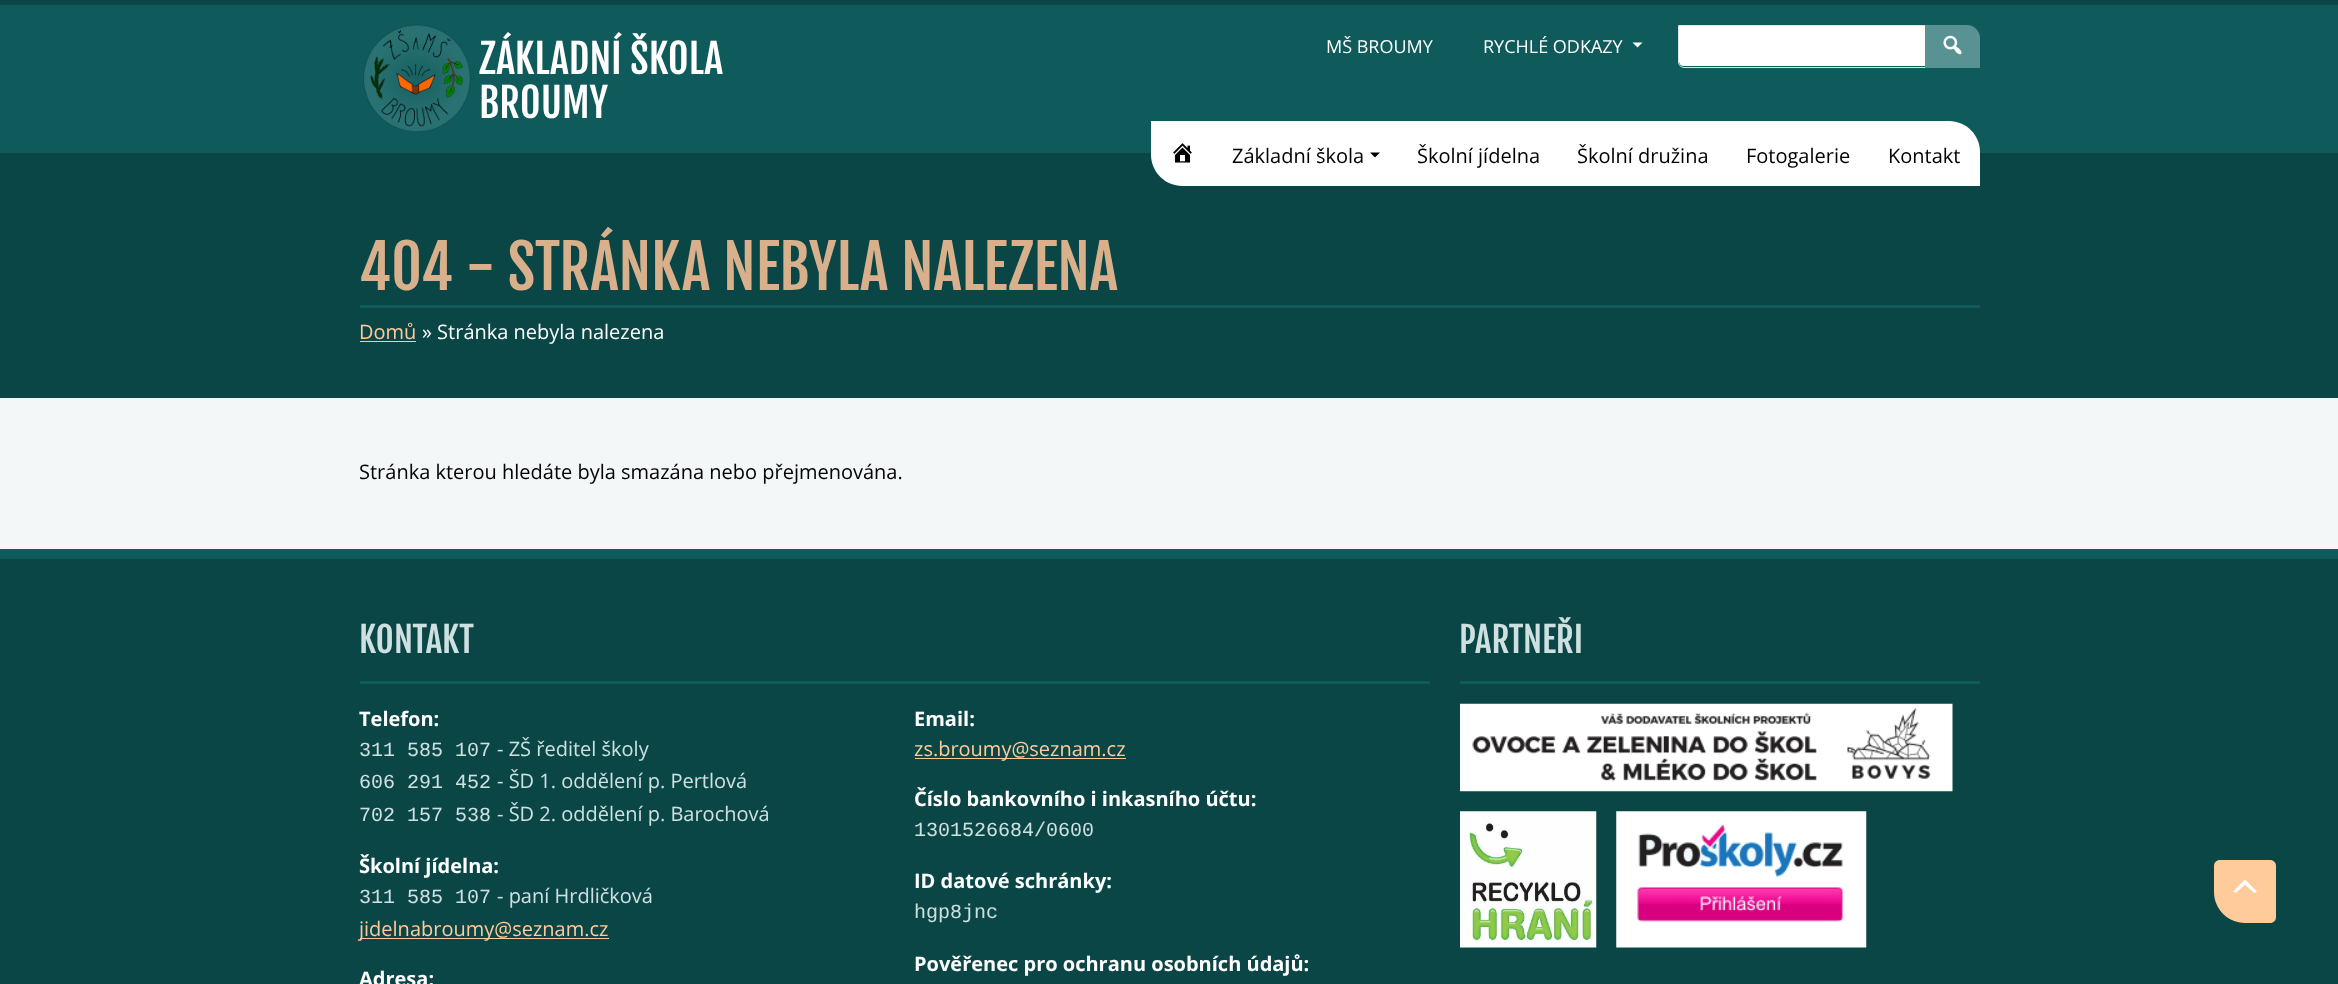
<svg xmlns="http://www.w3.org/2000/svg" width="2338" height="984">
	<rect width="100%" height="100%" fill="#F3F7F7" />
	<rect x="0" y="5" width="2338" height="148" fill="#0F5A5B" />
	<rect x="0" y="0" width="2338" height="5" fill="#0B4647" />
	<image x="363" y="24" width="108" height="108" href="assets/img1.png" />
	<g font-family="Fjalla One" font-size="40" fill="#FFFFFF">
		<text x="479" y="74">ZÁKLADNÍ ŠKOLA</text>
		<text x="479" y="118">BROUMY</text>
	</g>
	<g font-family="Open Sans" font-size="18" fill="#FFFFFF">
		<text x="1326" y="53">MŠ BROUMY</text>
		<text x="1483" y="53">RYCHLÉ ODKAZY</text>
	</g>
	<path d="M1632.5 42.5H1642.5L1637.5 47.5Z" fill="#FFFFFF" />
	<path d="M1679 26H1925V66H1684C1681 66 1679 64 1679 61Z" fill="#FFFFFF" />
	<path d="M1678.5 25.5H1925.5V67.5H1684C1681 67.5 1678.5 65 1678.5 62Z" fill="none" stroke="#DEE2E6" />
	<path d="M1925 25H1967C1974 25 1980 31 1980 38V68H1925Z" fill="#589293" />
	<image x="1943" y="35" width="19" height="20" href="assets/img2.png" />
	<rect x="0" y="153" width="2338" height="245" fill="#0B4647" />
	<path d="M1151 121H1214V186H1182.5C1165 186 1151 172 1151 154.5Z" fill="#FFFFFF" />
	<image x="1173" y="143" width="19" height="20" href="assets/img3.png" />
	<rect x="1214" y="121" width="656" height="65" fill="#FFFFFF" />
	<text x="1232" y="163" font-family="Open Sans" font-size="20" fill="#000000">Základní škola</text>
	<path d="M1370 152.5H1380L1375 157.5Z" fill="#000000" />
	<g font-family="Open Sans" font-size="20" fill="#000000">
		<text x="1417" y="163">Školní jídelna</text>
		<text x="1577" y="163">Školní družina</text>
		<text x="1746" y="163">Fotogalerie</text>
	</g>
	<path d="M1870 121H1949C1966 121 1980 135 1980 152V186H1870Z" fill="#FFFFFF" />
	<text x="1888" y="163" font-family="Open Sans" font-size="20" fill="#000000">Kontakt</text>
	<text x="359" y="290" font-family="Fjalla One" font-size="60" fill="#D9B08C">404 - STRÁNKA NEBYLA NALEZENA</text>
	<rect x="360" y="305" width="1620" height="3" fill="#0F5A5B" />
	<text x="359" y="339" font-family="Open Sans" font-size="20" fill="#FFCB9A">Domů</text>
	<rect x="360" y="341" width="56" height="1" fill="#FFCB9A" />
	<text x="422" y="339" font-family="Open Sans" font-size="20" fill="#FFFFFF">» Stránka nebyla nalezena</text>
	<text x="359" y="479" font-family="Open Sans" font-size="20" fill="#000000">Stránka kterou hledáte byla smazána nebo přejmenována.</text>
	<rect x="0" y="559" width="2338" height="425" fill="#0B4647" />
	<rect x="0" y="549" width="2338" height="10" fill="#0F5A5B" />
	<rect x="360" y="681" width="1070" height="3" fill="#0F5A5B" />
	<text x="359" y="653" font-family="Fjalla One" font-size="35" fill="#CFE0E0">KONTAKT</text>
	<text x="359" y="726" font-family="Open Sans" font-size="20" font-weight="700" fill="#FFFFFF">Telefon:</text>
	<text x="359" y="756" font-family="Liberation Mono" font-size="20" fill="#CFE0E0">311 585 107</text>
	<text x="497" y="756" font-family="Open Sans" font-size="20" fill="#CFE0E0">- ZŠ ředitel školy</text>
	<text x="359" y="788" font-family="Liberation Mono" font-size="20" fill="#CFE0E0">606 291 452</text>
	<text x="497" y="788" font-family="Open Sans" font-size="20" fill="#CFE0E0">- ŠD 1. oddělení p. Pertlová</text>
	<text x="359" y="821" font-family="Liberation Mono" font-size="20" fill="#CFE0E0">702 157 538</text>
	<text x="497" y="821" font-family="Open Sans" font-size="20" fill="#CFE0E0">- ŠD 2. oddělení p. Barochová</text>
	<text x="359" y="873" font-family="Open Sans" font-size="20" font-weight="700" fill="#FFFFFF">Školní jídelna:</text>
	<text x="359" y="903" font-family="Liberation Mono" font-size="20" fill="#CFE0E0">311 585 107</text>
	<text x="497" y="903" font-family="Open Sans" font-size="20" fill="#CFE0E0">- paní Hrdličková</text>
	<rect x="360" y="938" width="249" height="1" fill="#FFCB9A" />
	<text x="359" y="936" font-family="Open Sans" font-size="20" fill="#FFCB9A">jidelnabroumy@seznam.cz</text>
	<g font-family="Open Sans" font-size="20" font-weight="700" fill="#FFFFFF">
		<text x="359" y="986">Adresa:</text>
		<text x="914" y="726">Email:</text>
	</g>
	<rect x="915" y="758" width="211" height="1" fill="#FFCB9A" />
	<text x="914" y="756" font-family="Open Sans" font-size="20" fill="#FFCB9A">zs.broumy@seznam.cz</text>
	<text x="914" y="806" font-family="Open Sans" font-size="20" font-weight="700" fill="#FFFFFF">Číslo bankovního i inkasního účtu:</text>
	<text x="914" y="836" font-family="Liberation Mono" font-size="20" fill="#CFE0E0">1301526684/0600</text>
	<text x="914" y="888" font-family="Open Sans" font-size="20" font-weight="700" fill="#FFFFFF">ID datové schránky:</text>
	<text x="914" y="918" font-family="Liberation Mono" font-size="20" fill="#CFE0E0">hgp8jnc</text>
	<text x="914" y="971" font-family="Open Sans" font-size="20" font-weight="700" fill="#FFFFFF">Pověřenec pro ochranu osobních údajů:</text>
	<rect x="1460" y="681" width="520" height="3" fill="#0F5A5B" />
	<text x="1459" y="653" font-family="Fjalla One" font-size="35" fill="#CFE0E0">PARTNEŘI</text>
	<image x="1460" y="703" width="493" height="89" href="assets/img4.png" />
	<image x="1460" y="811" width="137" height="137" href="assets/img5.png" />
	<image x="1616" y="811" width="251" height="137" href="assets/img6.png" />
	<path d="M2220 860H2270C2273.5 860 2276 862.5 2276 866V917C2276 920.5 2273.5 923 2270 923H2245C2228 923 2214 909 2214 892V866C2214 862.5 2216.5 860 2220 860Z" fill="#FFCB9A" />
	<path d="M2254 893L2245 884.5L2236 893L2233 891.5L2245 879.5L2257 891.5Z" fill="#FFFFFF" />
</svg>
